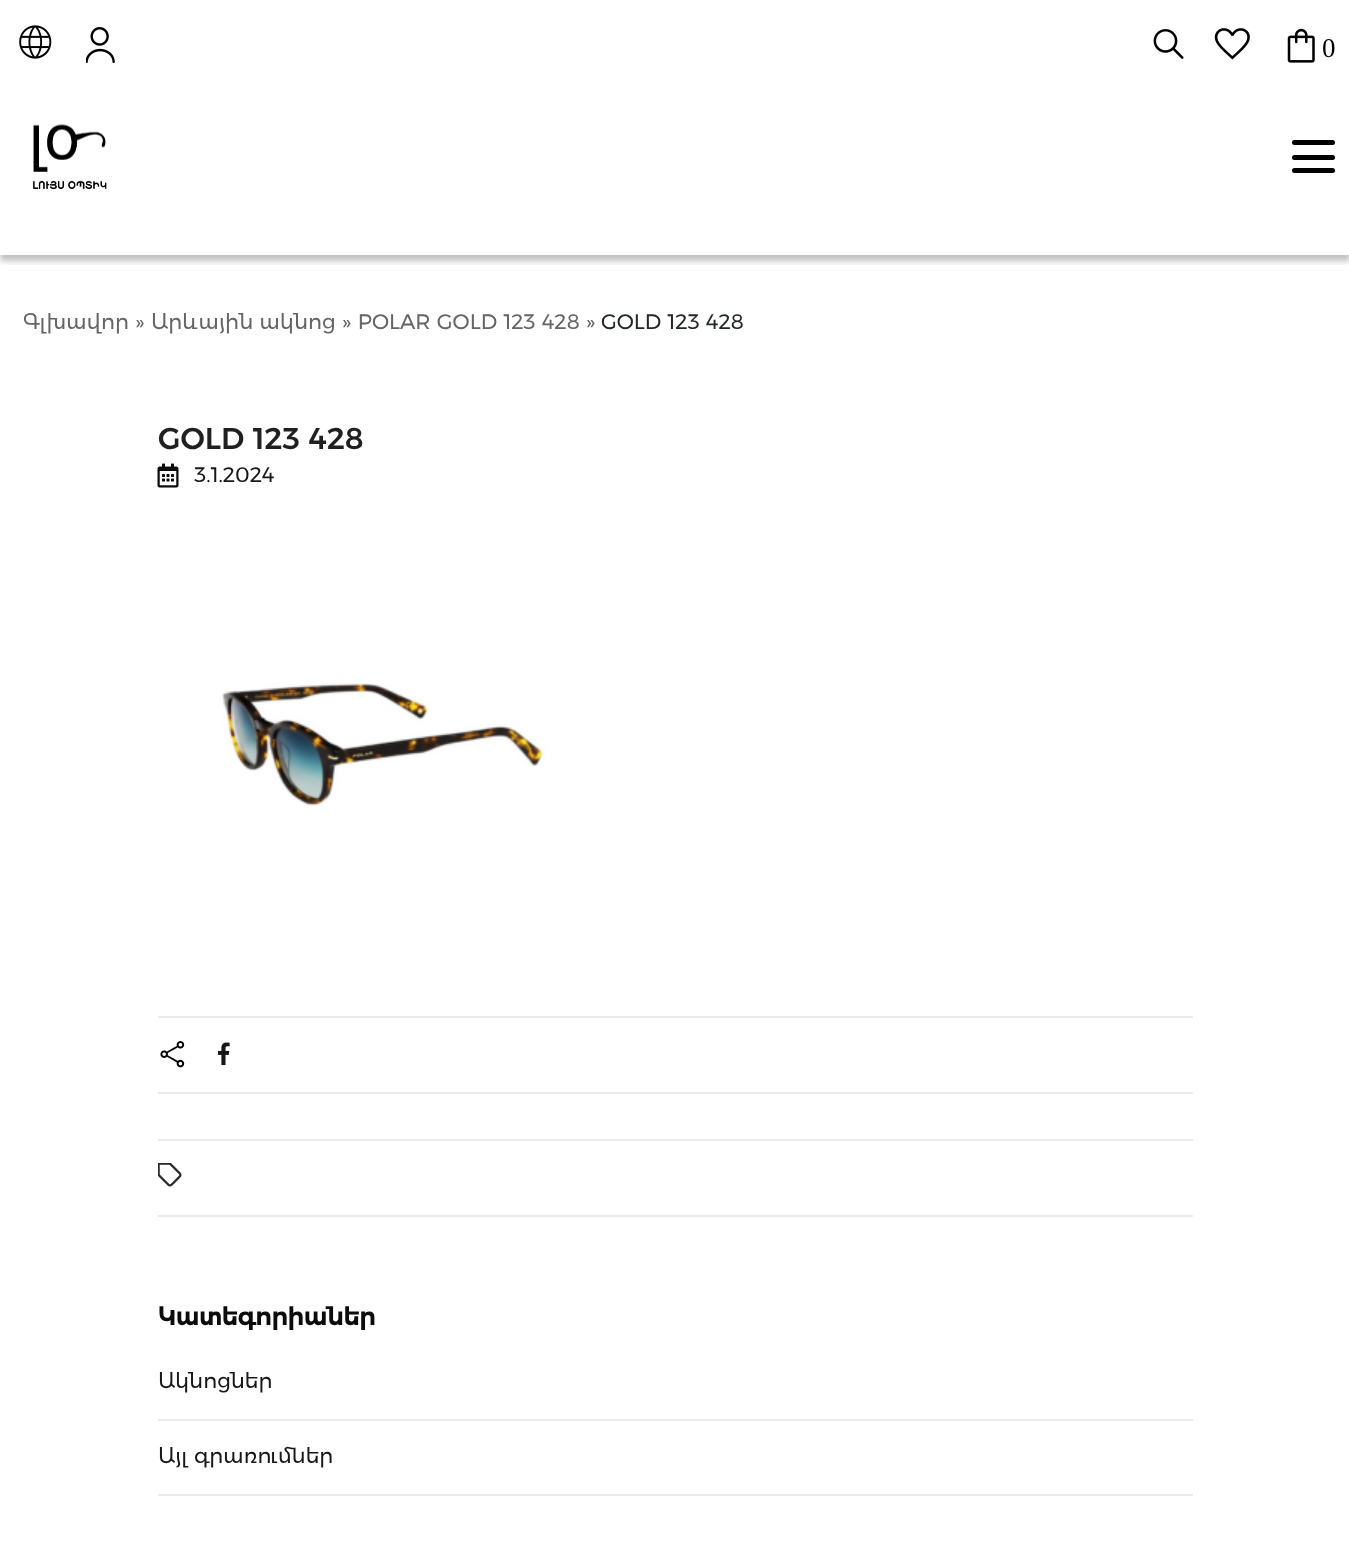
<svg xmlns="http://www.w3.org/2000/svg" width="1349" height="1541">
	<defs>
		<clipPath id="clip1"><rect x="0" y="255" width="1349" height="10" /></clipPath>
	</defs>
	<rect width="100%" height="100%" fill="#FFFFFF" />
	<g clip-path="url(#clip1)">
		<rect x="0" y="6" width="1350" height="255" fill="#000000" fill-opacity="0.25" filter="blur(3px)" />
	</g>
	<image x="19" y="25" width="33" height="34" href="assets/img1.png" />
	<image x="86" y="27" width="29" height="37" href="assets/img2.png" />
	<image x="1153" y="29" width="31" height="30" href="assets/img3.png" />
	<image x="1214" y="28" width="36" height="32" href="assets/img4.png" />
	<image x="1287" y="28" width="28" height="35" href="assets/img5.png" />
	<text x="1322" y="57" font-family="Liberation Serif" font-size="27" fill="#000000">0</text>
	<image x="32" y="124" width="75" height="66" href="assets/img6.png" />
	<rect x="1292" y="140" width="43" height="5" rx="2.5" fill="#000000" />
	<rect x="1292" y="155" width="43" height="5" rx="2.5" fill="#000000" />
	<rect x="1292" y="168" width="43" height="5" rx="2.5" fill="#000000" />
	<text x="23" y="329" font-family="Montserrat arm" font-size="21" fill="#656565">Գլխավոր » Արևային ակնոց » POLAR GOLD 123 428 »</text>
	<text x="601" y="329" font-family="Montserrat arm" font-size="21" fill="#24282B">GOLD 123 428</text>
	<text x="158" y="449" font-family="Montserrat arm" font-size="30" font-weight="500" fill="#202020">GOLD 123 428</text>
	<image x="157" y="463" width="22" height="25" href="assets/img7.png" />
	<text x="194" y="482" font-family="Montserrat arm" font-size="21" fill="#171717">3.1.2024</text>
	<image x="222" y="683" width="325" height="123" href="assets/img8.png" />
	<rect x="158" y="1016" width="1035" height="2" fill="#EBEBEB" />
	<rect x="158" y="1092" width="1035" height="2" fill="#EBEBEB" />
	<image x="160" y="1041" width="25" height="27" href="assets/img9.png" />
	<image x="218" y="1042" width="12" height="23" href="assets/img10.png" />
	<rect x="158" y="1139" width="1035" height="2" fill="#EBEBEB" />
	<rect x="158" y="1215" width="1035" height="2" fill="#EBEBEB" />
	<image x="158" y="1163" width="24" height="24" href="assets/img11.png" />
	<text x="158" y="1325" font-family="Montserrat arm" font-size="24" font-weight="700" fill="#0C0C0C">Կատեգորիաներ</text>
	<rect x="158" y="1419" width="1035" height="2" fill="#EBEBEB" />
	<text x="158" y="1388" font-family="Montserrat arm" font-size="21" fill="#171717">Ակնոցներ</text>
	<rect x="158" y="1494" width="1035" height="2" fill="#EBEBEB" />
	<text x="158" y="1463" font-family="Montserrat arm" font-size="21" fill="#171717">Այլ գրառումներ</text>
</svg>
